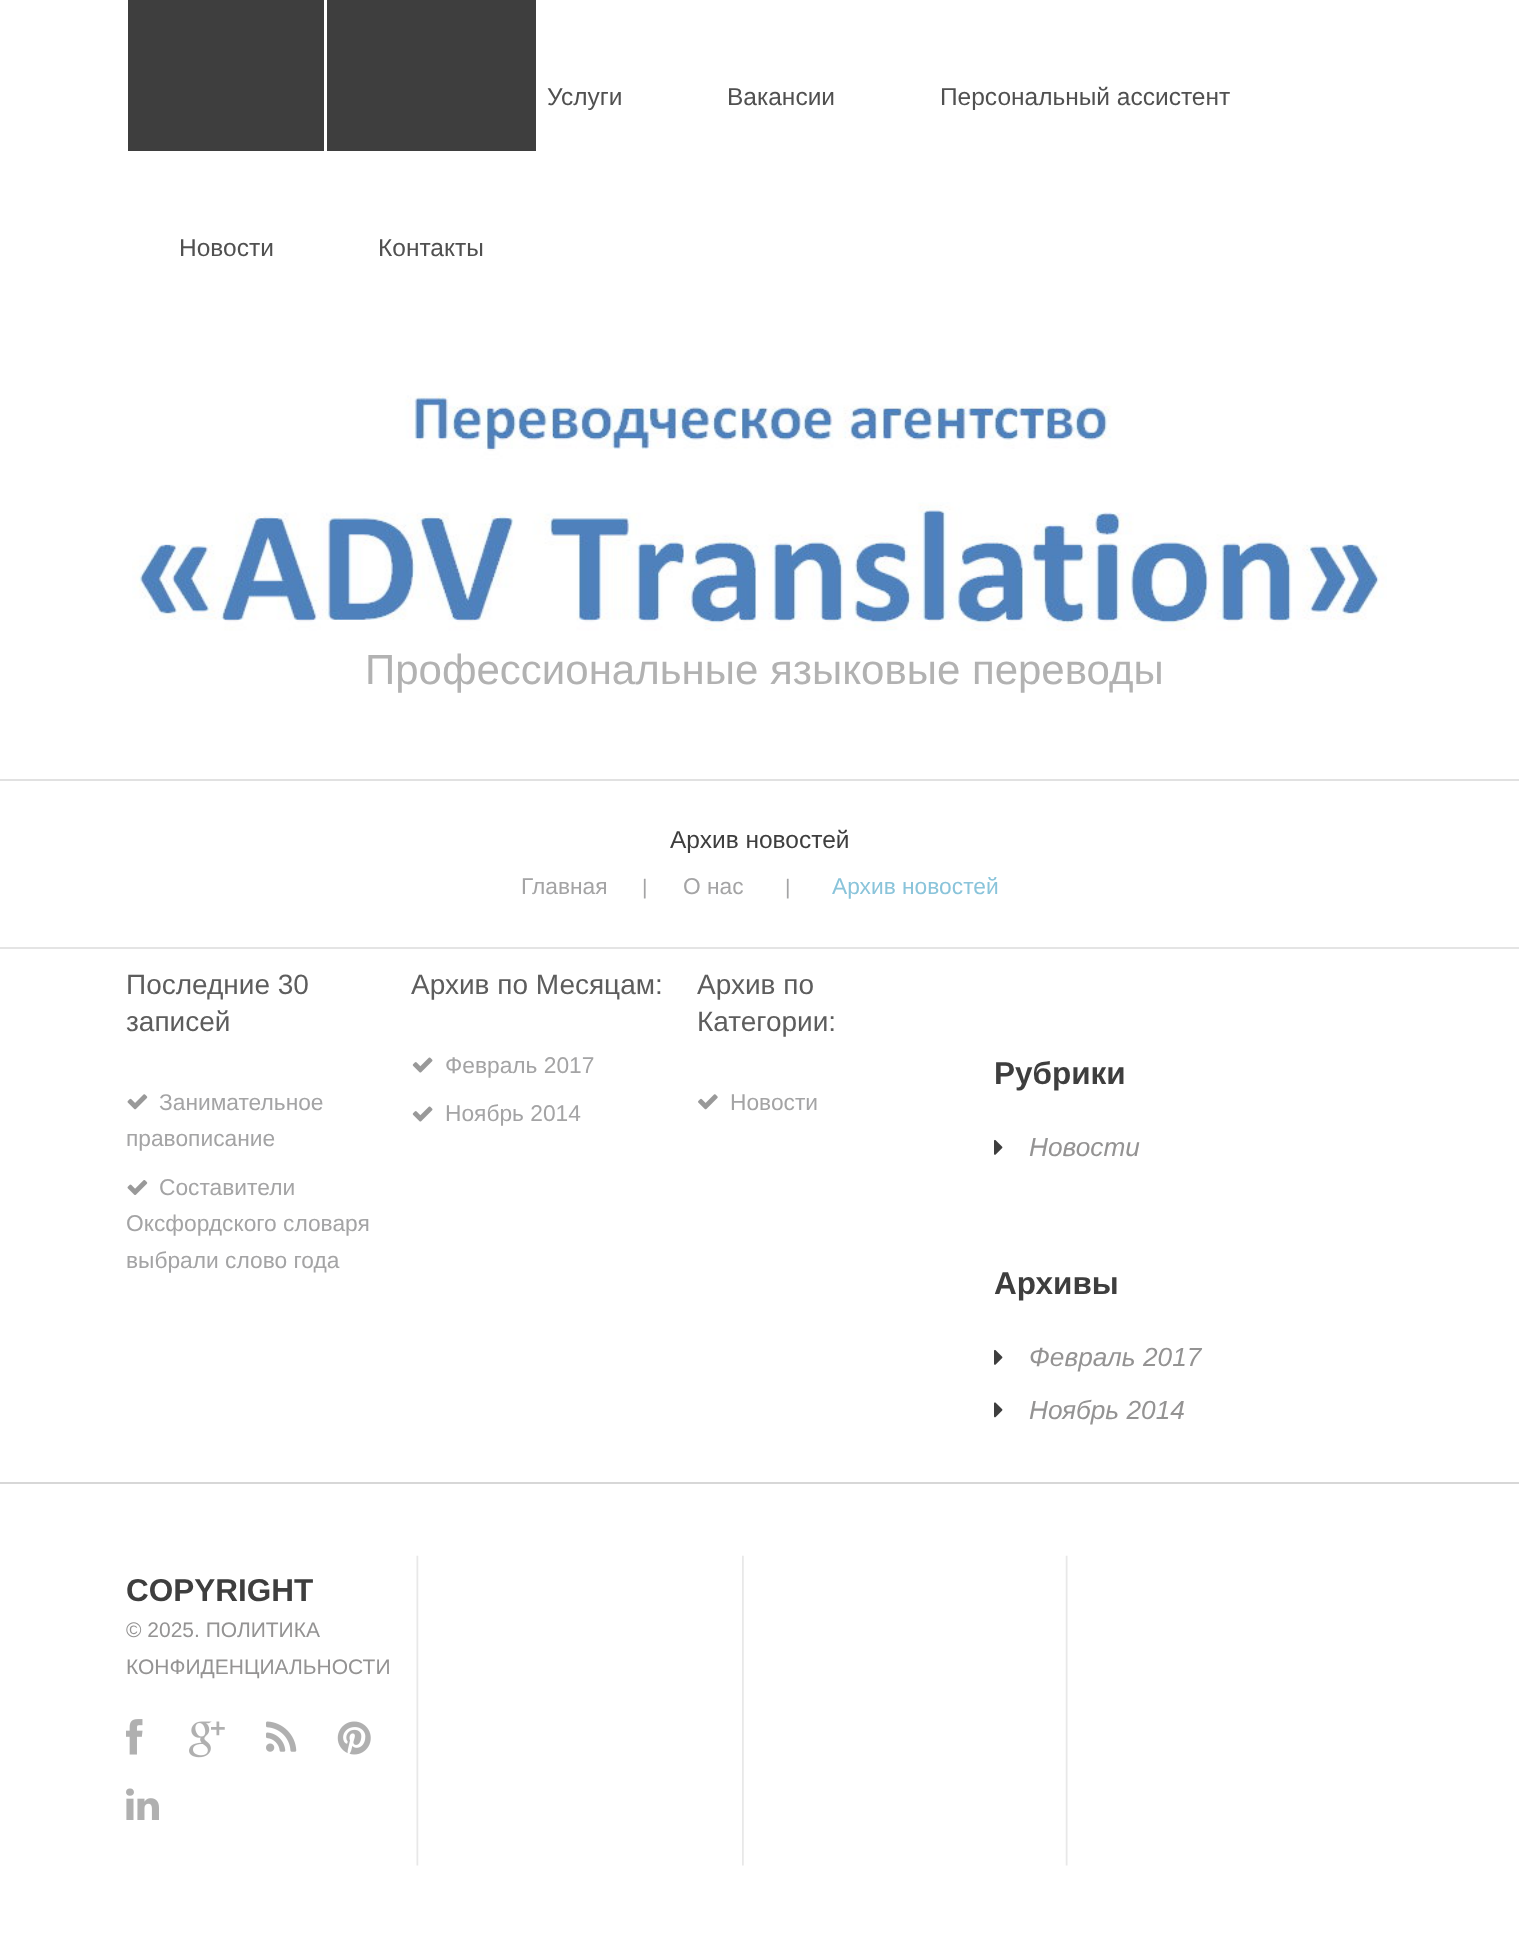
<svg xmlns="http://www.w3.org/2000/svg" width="1519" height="1955">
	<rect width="100%" height="100%" fill="#FFFFFF" />
	<rect x="0" y="779" width="1519" height="2" fill="#E1E1E1" />
	<g font-family="Liberation Sans" font-size="24.5" fill="#505050">
		<text x="547" y="105">Услуги</text>
		<text x="727" y="105">Вакансии</text>
		<text x="940" y="105">Персональный ассистент</text>
	</g>
	<rect x="128" y="0" width="196" height="151" fill="#3E3E3E" />
	<text x="179" y="256" font-family="Liberation Sans" font-size="24.5" fill="#505050">Новости</text>
	<rect x="327" y="0" width="209" height="151" fill="#3E3E3E" />
	<text x="378" y="256" font-family="Liberation Sans" font-size="24.5" fill="#505050">Контакты</text>
	<image x="132" y="395" width="1255" height="236" href="assets/img1.png" />
	<text x="365" y="684" font-family="Liberation Sans" font-size="42" fill="#B2B2B2">Профессиональные языковые переводы</text>
	<rect x="0" y="947" width="1519" height="2" fill="#E4E4E4" />
	<text x="670" y="848" font-family="Liberation Sans" font-size="24.5" fill="#3E3E3E">Архив новостей</text>
	<text x="521" y="894" font-family="Liberation Sans" font-size="22.75" fill="#A4A4A5">Главная</text>
	<text x="642" y="894" font-family="Liberation Sans" font-size="21" fill="#A4A4A5">|</text>
	<text x="683" y="894" font-family="Liberation Sans" font-size="22.75" fill="#A4A4A5">О нас</text>
	<text x="785" y="894" font-family="Liberation Sans" font-size="21" fill="#A4A4A5">|</text>
	<text x="832" y="894" font-family="Liberation Sans" font-size="22.75" fill="#8AC4DA">Архив новостей</text>
	<g font-family="Liberation Sans" font-size="28" fill="#5D5D5D">
		<text x="126" y="994">Последние 30</text>
		<text x="126" y="1031">записей</text>
	</g>
	<image x="127" y="1094" width="21" height="16" href="assets/img2.png" />
	<g font-family="Liberation Sans" font-size="22.75" fill="#A4A4A5">
		<text x="159" y="1110">Занимательное</text>
		<text x="126" y="1146">правописание</text>
	</g>
	<image x="127" y="1180" width="21" height="15" href="assets/img3.png" />
	<g font-family="Liberation Sans" font-size="22.75" fill="#A4A4A5">
		<text x="159" y="1195">Составители</text>
		<text x="126" y="1231">Оксфордского словаря</text>
		<text x="126" y="1268">выбрали слово года</text>
	</g>
	<text x="411" y="994" font-family="Liberation Sans" font-size="28" fill="#5D5D5D">Архив по Месяцам:</text>
	<image x="412" y="1057" width="21" height="16" href="assets/img4.png" />
	<text x="445" y="1073" font-family="Liberation Sans" font-size="22.75" fill="#A4A4A5">Февраль 2017</text>
	<image x="412" y="1106" width="21" height="16" href="assets/img4.png" />
	<text x="445" y="1121" font-family="Liberation Sans" font-size="22.75" fill="#A4A4A5">Ноябрь 2014</text>
	<g font-family="Liberation Sans" font-size="28" fill="#5D5D5D">
		<text x="697" y="994">Архив по</text>
		<text x="697" y="1031">Категории:</text>
	</g>
	<image x="698" y="1094" width="20" height="16" href="assets/img5.png" />
	<text x="730" y="1110" font-family="Liberation Sans" font-size="22.75" fill="#A4A4A5">Новости</text>
	<text x="994" y="1084" font-family="Liberation Sans" font-size="31.5" font-weight="700" fill="#3E3E3E">Рубрики</text>
	<image x="994" y="1139" width="9" height="16" href="assets/img6.png" />
	<text x="1029" y="1156" font-family="Liberation Sans" font-size="26.25" font-style="italic" fill="#949393">Новости</text>
	<text x="994" y="1294" font-family="Liberation Sans" font-size="31.5" font-weight="700" fill="#3E3E3E">Архивы</text>
	<image x="994" y="1349" width="9" height="16" href="assets/img6.png" />
	<text x="1029" y="1366" font-family="Liberation Sans" font-size="26.25" font-style="italic" fill="#949393">Февраль 2017</text>
	<image x="994" y="1402" width="9" height="16" href="assets/img7.png" />
	<text x="1029" y="1419" font-family="Liberation Sans" font-size="26.25" font-style="italic" fill="#949393">Ноябрь 2014</text>
	<rect x="0" y="1482" width="1519" height="2" fill="#D7D7D7" />
	<image x="416" y="1555" width="652" height="311" href="assets/img8.png" />
	<text x="126" y="1601" font-family="Liberation Sans" font-size="31.5" font-weight="700" fill="#3E3E3E">COPYRIGHT</text>
	<g font-family="Liberation Sans" font-size="21" fill="#949393">
		<text x="126" y="1637">© 2025. ПОЛИТИКА</text>
		<text x="126" y="1674">КОНФИДЕНЦИАЛЬНОСТИ</text>
	</g>
	<image x="126" y="1719" width="17" height="36" href="assets/img9.png" />
	<image x="189" y="1721" width="36" height="37" href="assets/img10.png" />
	<image x="266" y="1721" width="31" height="31" href="assets/img11.png" />
	<image x="337" y="1721" width="34" height="34" href="assets/img12.png" />
	<image x="126" y="1788" width="33" height="32" href="assets/img13.png" />
</svg>
